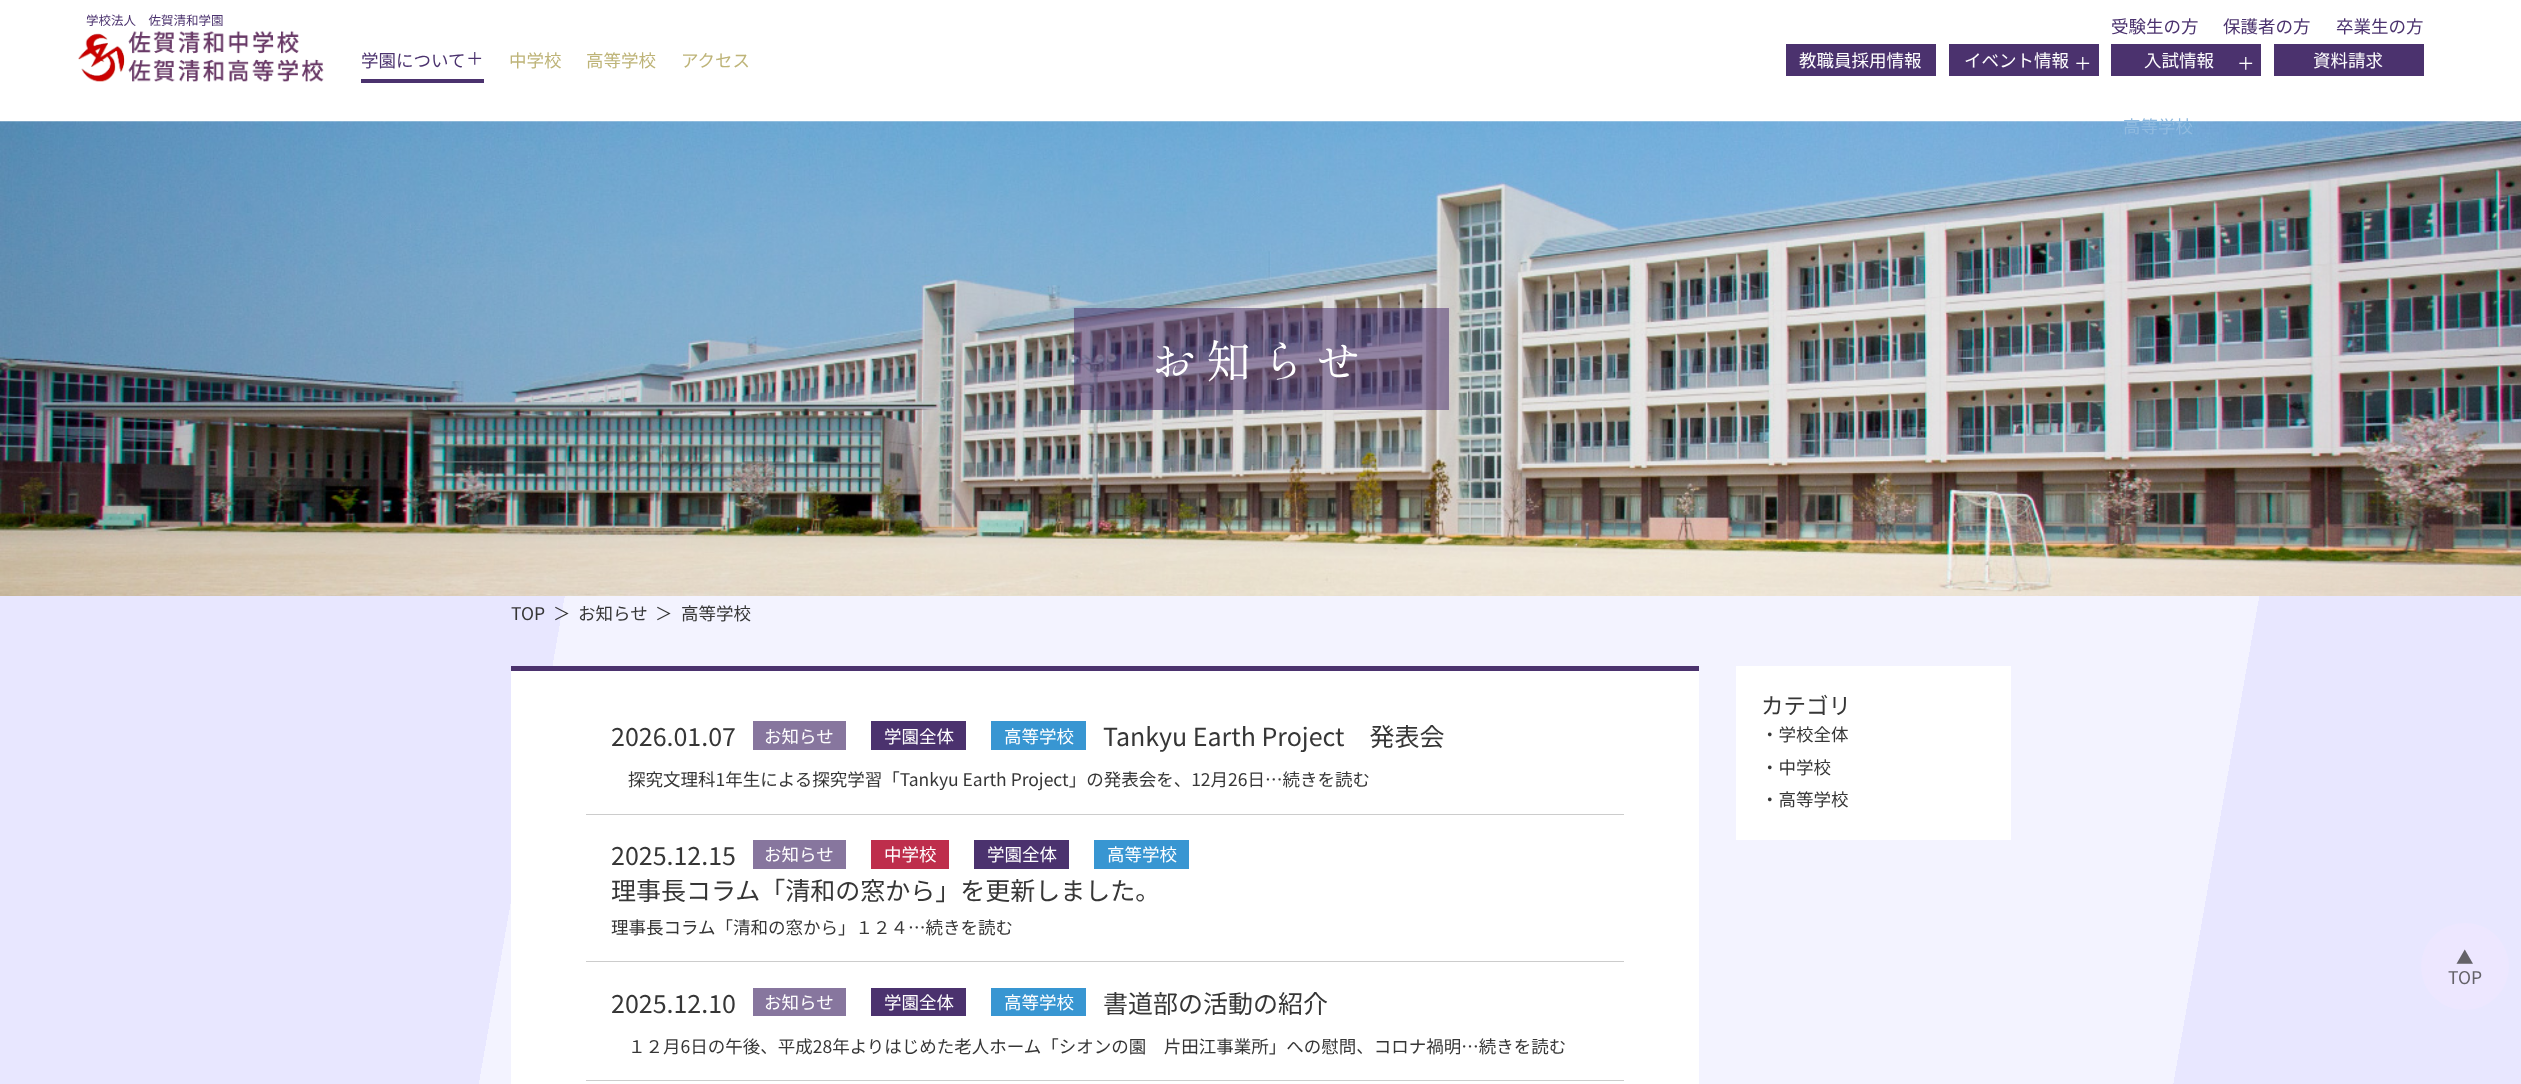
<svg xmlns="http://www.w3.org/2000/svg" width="2521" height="1084">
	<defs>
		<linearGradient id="g1" gradientUnits="userSpaceOnUse" x1="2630" y1="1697" x2="-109" y2="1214"><stop offset="0.2" stop-color="#E8E7FF" /><stop offset="0.2" stop-color="#F3F3FF" /><stop offset="0.8" stop-color="#F3F3FF" /><stop offset="0.8" stop-color="#E8E7FF" /><stop offset="1" stop-color="#E8E7FF" /></linearGradient>
	</defs>
	<rect width="100%" height="100%" fill="#FFFFFF" />
	<text x="86" y="25" font-family="Noto Sans JP" font-size="12.5" fill="#4B326E">学校法人　佐賀清和学園</text>
	<image x="78" y="30" width="246" height="52" href="assets/img1.png" />
	<g font-family="Noto Sans JP" font-size="17.5" fill="#4B326E">
		<text x="361" y="67">学園について</text>
		<text x="466" y="65">＋</text>
	</g>
	<rect x="361" y="79" width="123" height="4" fill="#4B326E" />
	<g font-family="Noto Sans JP" font-size="17.5" fill="#BEB478">
		<text x="509" y="67">中学校</text>
		<text x="586" y="67">高等学校</text>
		<text x="681" y="67">アクセス</text>
	</g>
	<g font-family="Noto Sans JP" font-size="17.5" fill="#4B326E">
		<text x="2111" y="33">受験生の方</text>
		<text x="2223" y="33">保護者の方</text>
		<text x="2336" y="33">卒業生の方</text>
	</g>
	<rect x="1786" y="44" width="150" height="32" fill="#4B326E" />
	<text x="1799" y="67" font-family="Noto Sans JP" font-size="17.5" fill="#FFFFFF">教職員採用情報</text>
	<rect x="1949" y="44" width="150" height="32" fill="#4B326E" />
	<g font-family="Noto Sans JP" font-size="17.5" fill="#FFFFFF">
		<text x="1964" y="67">イベント情報</text>
		<text x="2074" y="70">＋</text>
	</g>
	<rect x="2111" y="44" width="150" height="32" fill="#4B326E" />
	<g font-family="Noto Sans JP" font-size="17.5" fill="#FFFFFF">
		<text x="2144" y="67">入試情報</text>
		<text x="2237" y="70">＋</text>
	</g>
	<image x="0" y="121" width="2521" height="475" href="assets/img2.png" />
	<text x="2123" y="133" font-family="Noto Sans JP" font-size="17.5" fill="#8FBADF">高等学校</text>
	<rect x="2274" y="44" width="150" height="32" fill="#4B326E" />
	<text x="2313" y="67" font-family="Noto Sans JP" font-size="17.5" fill="#FFFFFF">資料請求</text>
	<rect x="1074" y="308" width="375" height="102" fill="#4B326E" fill-opacity="0.53" />
	<text x="1151" y="378" font-family="Shippori Mincho" font-size="45" letter-spacing="10" fill="#FFFFFF">お知らせ</text>
	<rect x="0" y="596" width="2521" height="488" fill="url(#g1)" />
	<g font-family="Noto Sans JP" font-size="17.5" fill="#363636">
		<text x="511" y="620">TOP</text>
		<text x="553" y="620">＞</text>
		<text x="578" y="620">お知らせ</text>
		<text x="655" y="620">＞</text>
		<text x="681" y="620">高等学校</text>
	</g>
	<rect x="511" y="671" width="1188" height="413" fill="#FFFFFF" />
	<rect x="511" y="666" width="1188" height="5" fill="#4B326E" />
	<rect x="586" y="814" width="1038" height="1" fill="#CCCCCC" />
	<text x="611" y="746" font-family="Noto Sans JP" font-size="25" fill="#363636">2026.01.07</text>
	<rect x="753" y="721" width="93" height="29" fill="#87769E" />
	<text x="764" y="743" font-family="Noto Sans JP" font-size="17.5" fill="#FFFFFF">お知らせ</text>
	<rect x="871" y="721" width="95" height="29" fill="#4B326E" />
	<text x="884" y="743" font-family="Noto Sans JP" font-size="17.5" fill="#FFFFFF">学園全体</text>
	<rect x="991" y="721" width="95" height="29" fill="#3896D2" />
	<text x="1004" y="743" font-family="Noto Sans JP" font-size="17.5" fill="#FFFFFF">高等学校</text>
	<text x="1103" y="746" font-family="Noto Sans JP" font-size="25" fill="#363636">Tankyu Earth Project　発表会</text>
	<text x="628" y="786" font-family="Noto Sans JP" font-size="17.5" fill="#363636">探究文理科1年生による探究学習「Tankyu Earth Project」の発表会を、12月26日…続きを読む</text>
	<rect x="586" y="961" width="1038" height="1" fill="#CCCCCC" />
	<text x="611" y="865" font-family="Noto Sans JP" font-size="25" fill="#363636">2025.12.15</text>
	<rect x="753" y="840" width="93" height="29" fill="#87769E" />
	<text x="764" y="861" font-family="Noto Sans JP" font-size="17.5" fill="#FFFFFF">お知らせ</text>
	<rect x="871" y="840" width="78" height="29" fill="#BE2E4C" />
	<text x="884" y="861" font-family="Noto Sans JP" font-size="17.5" fill="#FFFFFF">中学校</text>
	<rect x="974" y="840" width="95" height="29" fill="#4B326E" />
	<text x="987" y="861" font-family="Noto Sans JP" font-size="17.5" fill="#FFFFFF">学園全体</text>
	<rect x="1094" y="840" width="95" height="29" fill="#3896D2" />
	<text x="1107" y="861" font-family="Noto Sans JP" font-size="17.5" fill="#FFFFFF">高等学校</text>
	<text x="611" y="900" font-family="Noto Sans JP" font-size="25" fill="#363636">理事長コラム「清和の窓から」を更新しました。</text>
	<text x="611" y="934" font-family="Noto Sans JP" font-size="17.5" fill="#363636">理事長コラム「清和の窓から」１２４…続きを読む</text>
	<rect x="586" y="1080" width="1038" height="1" fill="#CCCCCC" />
	<text x="611" y="1013" font-family="Noto Sans JP" font-size="25" fill="#363636">2025.12.10</text>
	<rect x="753" y="988" width="93" height="28" fill="#87769E" />
	<text x="764" y="1009" font-family="Noto Sans JP" font-size="17.5" fill="#FFFFFF">お知らせ</text>
	<rect x="871" y="988" width="95" height="28" fill="#4B326E" />
	<text x="884" y="1009" font-family="Noto Sans JP" font-size="17.5" fill="#FFFFFF">学園全体</text>
	<rect x="991" y="988" width="95" height="28" fill="#3896D2" />
	<text x="1004" y="1009" font-family="Noto Sans JP" font-size="17.5" fill="#FFFFFF">高等学校</text>
	<text x="1103" y="1013" font-family="Noto Sans JP" font-size="25" fill="#363636">書道部の活動の紹介</text>
	<text x="628" y="1053" font-family="Noto Sans JP" font-size="17.5" fill="#363636">１２月6日の午後、平成28年よりはじめた老人ホーム「シオンの園　片田江事業所」への慰問、コロナ禍明…続きを読む</text>
	<rect x="1736" y="666" width="275" height="174" fill="#FFFFFF" />
	<text x="1761" y="714" font-family="Noto Sans JP" font-size="22.5" fill="#363636">カテゴリ</text>
	<g font-family="Noto Sans JP" font-size="17.5" fill="#363636">
		<text x="1761" y="741">・学校全体</text>
		<text x="1761" y="774">・中学校</text>
		<text x="1761" y="806">・高等学校</text>
	</g>
	<rect x="2421" y="923" width="88" height="87" rx="43.5" fill="#EDE7FF" />
	<g font-family="Noto Sans JP" font-size="17.5" fill="#646268">
		<text x="2456" y="964">▲</text>
		<text x="2448" y="984">TOP</text>
	</g>
</svg>
